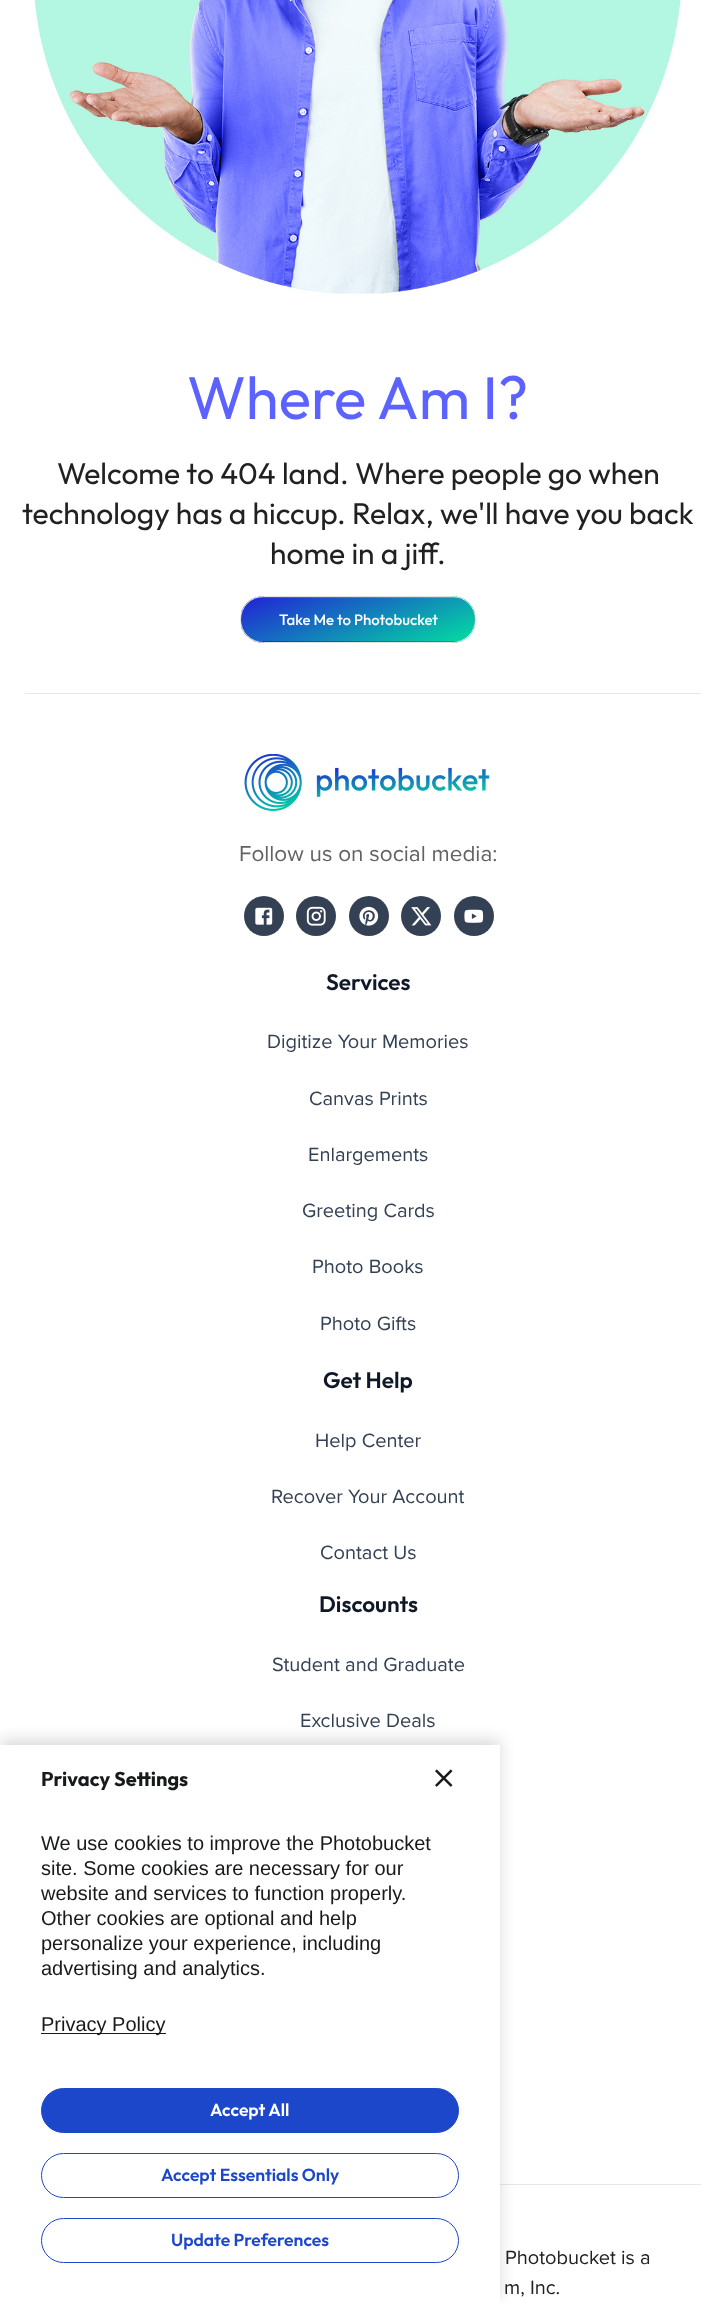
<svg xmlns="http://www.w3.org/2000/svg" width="716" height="2303">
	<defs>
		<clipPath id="clip1"><rect x="240" y="596" width="236" height="47" rx="23.5" /></clipPath>
		<linearGradient id="g1" gradientUnits="userSpaceOnUse" x1="335" y1="561" x2="382" y2="681"><stop offset="0.05" stop-color="#202CD3" /><stop offset="1" stop-color="#02E39F" /></linearGradient>
		<linearGradient id="g2" gradientUnits="userSpaceOnUse" x1="335" y1="517" x2="382" y2="637"><stop offset="0.05" stop-color="#202CD3" /><stop offset="1" stop-color="#02E39F" /></linearGradient>
		<linearGradient id="g3" gradientUnits="userSpaceOnUse" x1="335" y1="604" x2="382" y2="725"><stop offset="0.05" stop-color="#202CD3" /><stop offset="1" stop-color="#02E39F" /></linearGradient>
		<clipPath id="clip2"><path d="M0 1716H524V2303H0ZM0 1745H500V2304H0Z" clip-rule="evenodd" /></clipPath>
	</defs>
	<rect width="100%" height="100%" fill="#FFFFFF" />
	<image x="34" y="0" width="647" height="294" href="assets/img1.png" />
	<text x="187" y="419" font-family="Outfit" font-size="60" fill="#5B62FF">Where Am I?</text>
	<g font-family="Outfit" font-size="30" fill="#212121">
		<text x="57" y="484">Welcome to 404 land. Where people go when</text>
		<text x="22" y="524">technology has a hiccup. Relax, we'll have you back</text>
		<text x="270" y="564">home in a jiff.</text>
	</g>
	<g clip-path="url(#clip1)">
		<rect x="241" y="598" width="234" height="43" fill="url(#g1)" />
		<rect x="254" y="596" width="208" height="2" fill="url(#g2)" />
		<rect x="254" y="641" width="208" height="2" fill="url(#g3)" />
	</g>
	<rect x="240.5" y="596.5" width="235" height="46" rx="23" fill="none" stroke="#E1E1E1" />
	<text x="279" y="625" font-family="Outfit" font-size="15" font-weight="500" fill="#FFFFFF">Take Me to Photobucket</text>
	<rect x="25" y="693" width="676" height="1" fill="#E4E7EC" />
	<rect x="500" y="2184" width="201" height="1" fill="#E4E7EC" />
	<image x="244" y="754" width="246" height="57" href="assets/img2.png" />
	<text x="239" y="861" font-family="Proxima Nova" font-size="22.5" fill="#626262">Follow us on social media:</text>
	<circle cx="264" cy="916" r="20" fill="#344054" />
	<image x="255" y="907" width="18" height="18" href="assets/img3.png" />
	<circle cx="316" cy="916" r="20" fill="#344054" />
	<image x="306" y="906" width="20" height="20" href="assets/img4.png" />
	<circle cx="369" cy="916" r="20" fill="#344054" />
	<image x="359" y="906" width="20" height="20" href="assets/img5.png" />
	<circle cx="421" cy="916" r="20" fill="#344054" />
	<image x="411" y="907" width="21" height="19" href="assets/img6.png" />
	<circle cx="474" cy="916" r="20" fill="#344054" />
	<image x="464" y="909" width="20" height="14" href="assets/img7.png" />
	<text x="326" y="990" font-family="Outfit" font-size="22.5" font-weight="600" fill="#101828">Services</text>
	<g font-family="Proxima Nova" font-size="20" fill="#344054">
		<text x="267" y="1048">Digitize Your Memories</text>
		<text x="309" y="1105">Canvas Prints</text>
		<text x="308" y="1161">Enlargements</text>
		<text x="302" y="1217">Greeting Cards</text>
		<text x="312" y="1273">Photo Books</text>
		<text x="320" y="1330">Photo Gifts</text>
	</g>
	<text x="323" y="1388" font-family="Outfit" font-size="22.5" font-weight="600" fill="#101828">Get Help</text>
	<g font-family="Proxima Nova" font-size="20" fill="#344054">
		<text x="315" y="1447">Help Center</text>
		<text x="271" y="1503">Recover Your Account</text>
		<text x="320" y="1559">Contact Us</text>
	</g>
	<text x="319" y="1612" font-family="Outfit" font-size="22.5" font-weight="600" fill="#101828">Discounts</text>
	<g font-family="Proxima Nova" font-size="20" fill="#344054">
		<text x="272" y="1671">Student and Graduate</text>
		<text x="300" y="1727">Exclusive Deals</text>
	</g>
	<g font-family="Proxima Nova" font-size="20" fill="#212121">
		<text x="505" y="2264">Photobucket is a</text>
		<text x="504" y="2294">m, Inc.</text>
	</g>
	<g clip-path="url(#clip2)">
		<rect x="0" y="1740" width="500" height="559" fill="#000000" fill-opacity="0.15" filter="blur(7.5px)" />
	</g>
	<text x="41" y="1786" font-family="Outfit" font-size="20" font-weight="700" fill="#17191A">Privacy Settings</text>
	<image x="435" y="1769" width="18" height="18" href="assets/img8.png" />
	<g font-family="Liberation Sans" font-size="20" fill="#17191A">
		<text x="41" y="1850">We use cookies to improve the Photobucket</text>
		<text x="41" y="1875">site. Some cookies are necessary for our</text>
		<text x="41" y="1900">website and services to function properly.</text>
		<text x="41" y="1925">Other cookies are optional and help</text>
		<text x="41" y="1950">personalize your experience, including</text>
		<text x="41" y="1975">advertising and analytics.</text>
	</g>
	<rect x="41" y="2033" width="125" height="1" fill="#17191A" />
	<text x="41" y="2031" font-family="Liberation Sans" font-size="20" fill="#17191A">Privacy Policy</text>
	<rect x="41.5" y="2088.5" width="417" height="44" rx="22" fill="#1C47CB" stroke="#1C47CB" />
	<text x="210" y="2116" font-family="Outfit" font-size="17.5" font-weight="600" fill="#FFFFFF">Accept All</text>
	<rect x="41.5" y="2153.5" width="417" height="44" rx="22" fill="none" stroke="#1C47CB" />
	<text x="161" y="2181" font-family="Outfit" font-size="17.5" font-weight="600" fill="#1C47CB">Accept Essentials Only</text>
	<rect x="41.5" y="2218.5" width="417" height="44" rx="22" fill="none" stroke="#1C47CB" />
	<text x="171" y="2246" font-family="Outfit" font-size="17.5" font-weight="600" fill="#1C47CB">Update Preferences</text>
</svg>
